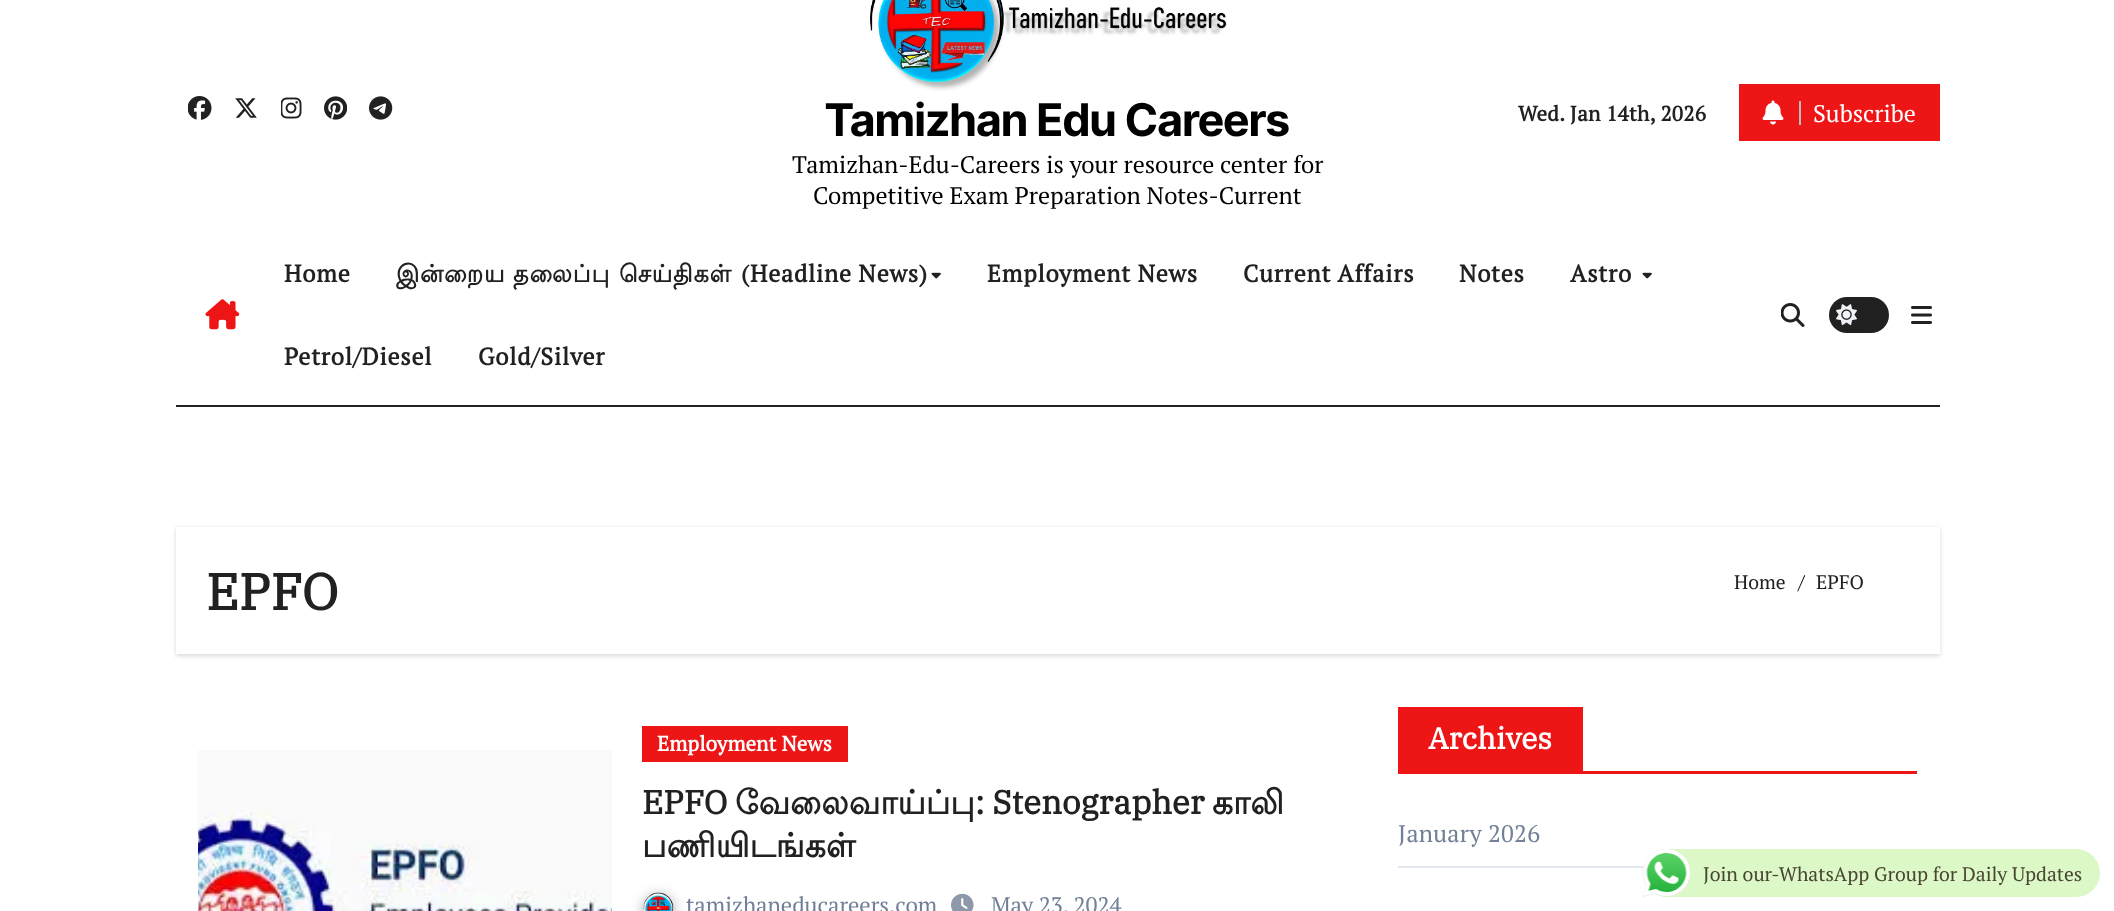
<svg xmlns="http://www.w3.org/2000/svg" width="2114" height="911">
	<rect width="100%" height="100%" fill="#FFFFFF" />
	<image x="188" y="96" width="24" height="24" href="assets/img1.png" />
	<image x="235" y="98" width="22" height="20" href="assets/img2.png" />
	<image x="281" y="97" width="21" height="22" href="assets/img3.png" />
	<image x="324" y="96" width="23" height="24" href="assets/img4.png" />
	<image x="369" y="96" width="24" height="24" href="assets/img5.png" />
	<image x="870" y="0" width="357" height="91" href="assets/img6.png" />
	<text x="825" y="136" font-family="Inter Tight" font-size="45" font-weight="700" fill="#000000">Tamizhan Edu Careers</text>
	<g font-family="PT Serif" font-size="24" fill="#000000">
		<text x="792" y="173">Tamizhan-Edu-Careers is your resource center for</text>
		<text x="813" y="204">Competitive Exam Preparation Notes-Current</text>
	</g>
	<text x="1518" y="121" font-family="PT Serif" font-size="21" font-weight="700" letter-spacing="0.25" fill="#212121">Wed. Jan 14th, 2026</text>
	<rect x="1739" y="84" width="201" height="57" fill="#ED1515" />
	<image x="1762" y="100" width="22" height="25" href="assets/img7.png" />
	<rect x="1799" y="101" width="2" height="24" fill="#BDBDBD" />
	<text x="1813" y="122" font-family="PT Serif" font-size="24" fill="#FFFFFF">Subscribe</text>
	<rect x="176" y="405" width="1764" height="2" fill="#212121" />
	<image x="205" y="299" width="35" height="31" href="assets/img8.png" />
	<text x="284" y="282" font-family="PT Serif" font-size="24" font-weight="700" letter-spacing="0.75" fill="#212121">Home</text>
	<g font-family="Lohit Tamil" font-size="24" font-weight="700" letter-spacing="0.75" fill="#212121">
		<text x="396" y="282">இன்றைய</text>
		<text x="513" y="282">தலைப்பு</text>
		<text x="619" y="282">செய்திகள்</text>
	</g>
	<text x="741" y="282" font-family="PT Serif" font-size="24" font-weight="700" letter-spacing="0.75" fill="#212121">(Headline News)</text>
	<image x="931" y="272" width="10" height="7" href="assets/img9.png" />
	<g font-family="PT Serif" font-size="24" font-weight="700" letter-spacing="0.75" fill="#212121">
		<text x="987" y="282">Employment News</text>
		<text x="1243" y="282">Current Affairs</text>
		<text x="1459" y="282">Notes</text>
		<text x="1570" y="282">Astro</text>
	</g>
	<image x="1642" y="272" width="10" height="7" href="assets/img9.png" />
	<g font-family="PT Serif" font-size="24" font-weight="700" letter-spacing="0.75" fill="#212121">
		<text x="284" y="365">Petrol/Diesel</text>
		<text x="478" y="365">Gold/Silver</text>
	</g>
	<image x="1781" y="303" width="24" height="24" href="assets/img10.png" />
	<rect x="1829" y="297" width="60" height="36" rx="18" fill="#212121" />
	<image x="1836" y="304" width="21" height="22" href="assets/img11.png" />
	<image x="1911" y="306" width="21" height="18" href="assets/img12.png" />
	<rect x="176" y="528" width="1764" height="128" fill="#000000" fill-opacity="0.15" filter="blur(2px)" />
	<rect x="176" y="527" width="1764" height="127" fill="#FFFFFF" />
	<text x="206" y="610" font-family="IBM Plex Serif" font-size="51" font-weight="700" fill="#212121">EPFO</text>
	<text x="1734" y="589" font-family="PT Serif" font-size="19.5" fill="#212121">Home</text>
	<text x="1798" y="589" font-family="PT Serif" font-size="19.5" fill="#000000">/</text>
	<text x="1816" y="589" font-family="PT Serif" font-size="19.5" fill="#212121">EPFO</text>
	<image x="198" y="750" width="414" height="161" href="assets/img13.png" />
	<rect x="642" y="726" width="206" height="36" fill="#ED1515" />
	<text x="657" y="751" font-family="PT Serif" font-size="21" font-weight="700" fill="#FFFFFF">Employment News</text>
	<text x="642" y="814" font-family="IBM Plex Serif" font-size="33" font-weight="700" fill="#212121">EPFO</text>
	<text x="735" y="814" font-family="Lohit Tamil" font-size="33" font-weight="700" fill="#212121">வேலைவாய்ப்பு</text>
	<text x="975" y="814" font-family="IBM Plex Serif" font-size="33" font-weight="700" fill="#212121">: Stenographer</text>
	<g font-family="Lohit Tamil" font-size="33" font-weight="700" fill="#212121">
		<text x="1212" y="814">காலி</text>
		<text x="642" y="857">பணியிடங்கள்</text>
	</g>
	<rect x="642" y="894" width="33" height="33" rx="16.5" fill="#212121" fill-opacity="0.3" filter="blur(6px)" />
	<image x="643" y="892" width="31" height="19" href="assets/img14.png" />
	<text x="686" y="913" font-family="PT Serif" font-size="22.5" fill="#718096">tamizhaneducareers.com</text>
	<image x="951" y="893" width="23" height="18" href="assets/img15.png" />
	<text x="991" y="913" font-family="PT Serif" font-size="22.5" fill="#718096">May 23, 2024</text>
	<rect x="1398" y="707" width="185" height="64" fill="#ED1515" />
	<text x="1428" y="749" font-family="IBM Plex Serif" font-size="30" font-weight="700" fill="#FFFFFF">Archives</text>
	<rect x="1398" y="771" width="519" height="3" fill="#ED1515" />
	<rect x="1398" y="866" width="246" height="2" fill="#E2E8F0" />
	<text x="1398" y="842" font-family="PT Serif" font-size="24" letter-spacing="0.25" fill="#718096">January 2026</text>
	<rect x="1643" y="849" width="457" height="48" rx="24" fill="#DCF8C6" />
	<image x="1642" y="849" width="49" height="48" href="assets/img16.png" />
	<text x="1703" y="881" font-family="PT Serif" font-size="19.5" fill="#494533">Join our-WhatsApp Group for Daily Updates</text>
</svg>
